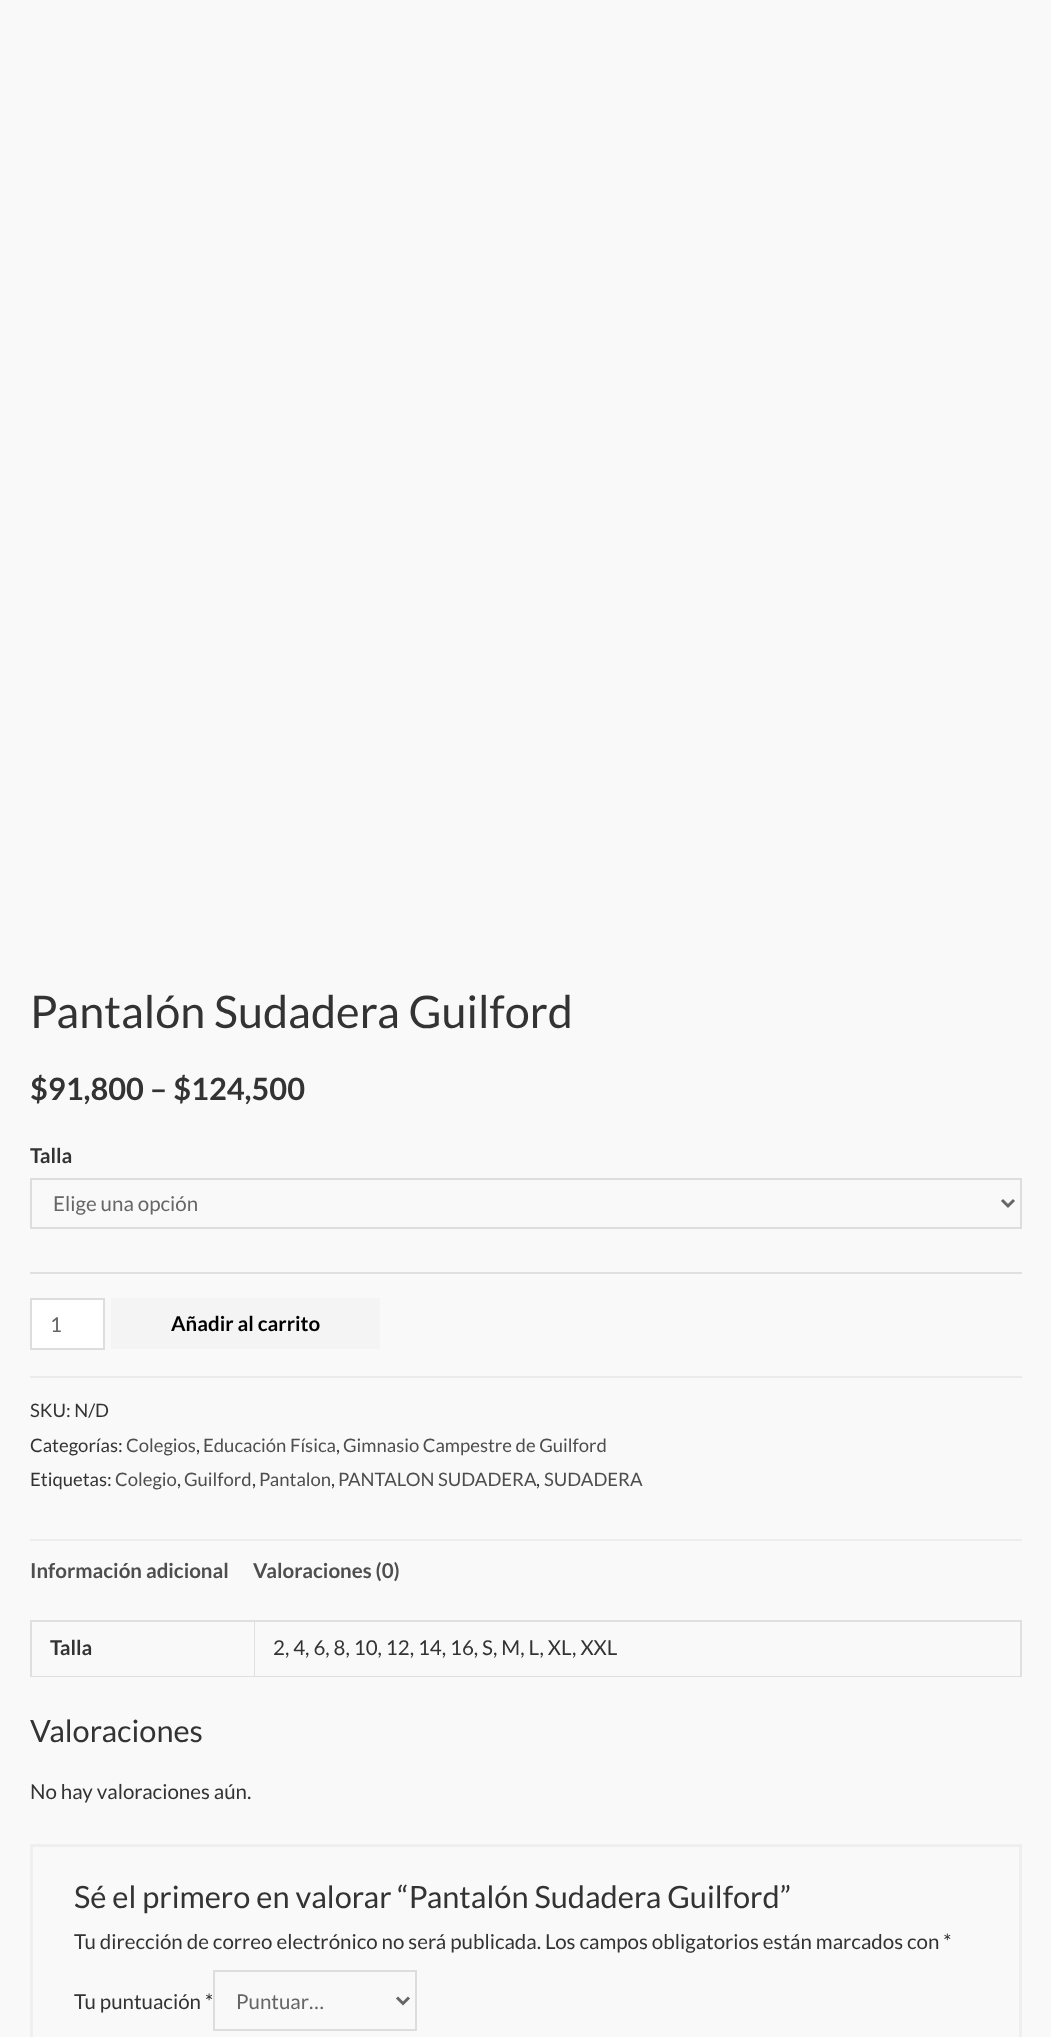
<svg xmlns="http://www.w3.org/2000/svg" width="1051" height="2037">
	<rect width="100%" height="100%" fill="#F9F9F9" />
	<text x="30" y="1028" font-family="Lato" font-size="45" fill="#333333">Pantalón Sudadera Guilford</text>
	<text x="30" y="1100" font-family="Lato" font-size="30.75" font-weight="700" fill="#333333">$91,800 – $124,500</text>
	<rect x="30" y="1272" width="992" height="2" fill="#E0E0E0" />
	<text x="30" y="1163" font-family="Lato" font-size="20.5" font-weight="700" fill="#333333">Talla</text>
	<rect x="31" y="1179" width="990" height="49" fill="none" stroke="#DDDDDD" stroke-width="2" />
	<path d="M1002 1200L1008 1206L1014 1200" fill="none" stroke="#666666" stroke-width="3" />
	<text x="53" y="1211" font-family="Lato" font-size="20.5" fill="#666666">Elige una opción</text>
	<rect x="31" y="1299" width="73" height="50" fill="#FFFFFF" stroke="#DDDDDD" stroke-width="2" />
	<text x="50" y="1332" font-family="Lato" font-size="20.5" fill="#666666">1</text>
	<rect x="111" y="1298" width="269" height="51" fill="#F4F4F4" />
	<text x="171" y="1331" font-family="Lato" font-size="20.5" font-weight="700" fill="#000000">Añadir al carrito</text>
	<rect x="30" y="1376" width="992" height="2" fill="#EBEBEB" />
	<g font-family="Lato" font-size="18.5" fill="#333333">
		<text x="30" y="1417">SKU: N/D</text>
		<text x="30" y="1452">Categorías:</text>
	</g>
	<text x="126" y="1452" font-family="Lato" font-size="18.5" fill="#4E4E4E">Colegios</text>
	<text x="196" y="1452" font-family="Lato" font-size="18.5" fill="#333333">,</text>
	<text x="203" y="1452" font-family="Lato" font-size="18.5" fill="#4E4E4E">Educación Física</text>
	<text x="336" y="1452" font-family="Lato" font-size="18.5" fill="#333333">,</text>
	<text x="343" y="1452" font-family="Lato" font-size="18.5" fill="#4E4E4E">Gimnasio Campestre de Guilford</text>
	<text x="30" y="1486" font-family="Lato" font-size="18.5" fill="#333333">Etiquetas:</text>
	<text x="115" y="1486" font-family="Lato" font-size="18.5" fill="#4E4E4E">Colegio</text>
	<text x="177" y="1486" font-family="Lato" font-size="18.5" fill="#333333">,</text>
	<text x="184" y="1486" font-family="Lato" font-size="18.5" fill="#4E4E4E">Guilford</text>
	<text x="252" y="1486" font-family="Lato" font-size="18.5" fill="#333333">,</text>
	<text x="259" y="1486" font-family="Lato" font-size="18.5" fill="#4E4E4E">Pantalon</text>
	<text x="331" y="1486" font-family="Lato" font-size="18.5" fill="#333333">,</text>
	<text x="338" y="1486" font-family="Lato" font-size="18.5" fill="#4E4E4E">PANTALON SUDADERA</text>
	<text x="536" y="1486" font-family="Lato" font-size="18.5" fill="#333333">,</text>
	<text x="544" y="1486" font-family="Lato" font-size="18.5" fill="#4E4E4E">SUDADERA</text>
	<rect x="30" y="1539" width="992" height="2" fill="#EDEDED" />
	<g font-family="Lato" font-size="20.5" font-weight="700" fill="#4E4E4E">
		<text x="30" y="1578">Información adicional</text>
		<text x="253" y="1578">Valoraciones (0)</text>
	</g>
	<rect x="30" y="1620" width="992" height="2" fill="#E0E0E0" />
	<path d="M255 1622V1677L254 1676V1622Z" fill="#E0E0E0" />
	<path d="M255 1677H30L32 1676H254Z" fill="#000000" fill-opacity="0.1" />
	<path d="M30 1677V1622H32V1676Z" fill="#000000" fill-opacity="0.1" />
	<text x="50" y="1655" font-family="Lato" font-size="20.5" font-weight="700" fill="#333333">Talla</text>
	<path d="M1022 1622V1677L1020 1676V1622Z" fill="#E0E0E0" />
	<path d="M1022 1677H255V1676H1020Z" fill="#000000" fill-opacity="0.1" />
	<text x="273" y="1655" font-family="Lato" font-size="20.5" fill="#333333">2, 4, 6, 8, 10, 12, 14, 16, S, M, L, XL, XXL</text>
	<text x="30" y="1742" font-family="Lato" font-size="30.75" fill="#333333">Valoraciones</text>
	<text x="30" y="1799" font-family="Lato" font-size="20.5" fill="#333333">No hay valoraciones aún.</text>
	<rect x="31.5" y="1845.5" width="989" height="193" fill="none" stroke="#EFEFEF" stroke-width="3" />
	<text x="74" y="1908" font-family="Lato" font-size="30.75" fill="#333333">Sé el primero en valorar “Pantalón Sudadera Guilford”</text>
	<g font-family="Lato" font-size="20.5" fill="#333333">
		<text x="74" y="1949">Tu dirección de correo electrónico no será publicada. Los campos obligatorios están marcados con *</text>
		<text x="74" y="2009">Tu puntuación *</text>
	</g>
	<rect x="214" y="1971" width="202" height="59" fill="none" stroke="#DDDDDD" stroke-width="2" />
	<path d="M397 1997.5L403 2003.5L409 1997.5" fill="none" stroke="#666666" stroke-width="3" />
	<text x="236" y="2009" font-family="Lato" font-size="20.5" fill="#666666">Puntuar…</text>
</svg>
